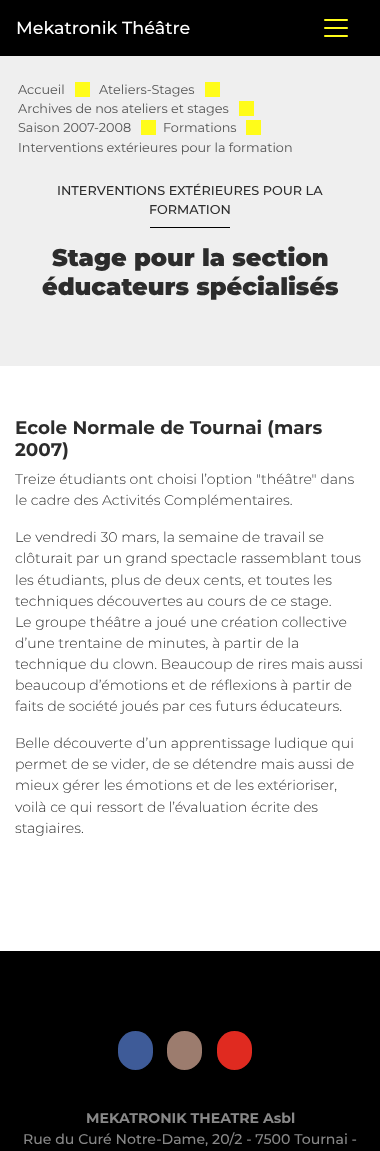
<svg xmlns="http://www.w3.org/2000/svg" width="380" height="1151">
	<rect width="100%" height="100%" fill="#FFFFFF" />
	<rect x="0" y="0" width="380" height="56" fill="#000000" />
	<text x="16" y="34" font-family="Montserrat" font-size="17.5" font-weight="500" fill="#FFFFFF">Mekatronik Théâtre</text>
	<image x="324" y="19" width="24" height="18" href="assets/img1.png" />
	<rect x="0" y="56" width="380" height="310" fill="#EFEFEF" />
	<text x="18" y="94" font-family="Montserrat" font-size="12.8" fill="#535353">Accueil</text>
	<rect x="75" y="82" width="15" height="15" fill="#FFFC19" />
	<text x="99" y="94" font-family="Montserrat" font-size="12.8" fill="#535353">Ateliers-Stages</text>
	<rect x="205" y="82" width="15" height="15" fill="#FFFC19" />
	<text x="18" y="113" font-family="Montserrat" font-size="12.8" fill="#535353">Archives de nos ateliers et stages</text>
	<rect x="239" y="101" width="15" height="15" fill="#FFFC19" />
	<text x="18" y="132" font-family="Montserrat" font-size="12.8" fill="#535353">Saison 2007-2008</text>
	<rect x="141" y="120" width="15" height="15" fill="#FFFC19" />
	<text x="163" y="132" font-family="Montserrat" font-size="12.8" fill="#535353">Formations</text>
	<rect x="246" y="120" width="15" height="15" fill="#FFFC19" />
	<text x="18" y="152" font-family="Montserrat" font-size="12.8" fill="#535353">Interventions extérieures pour la formation</text>
	<g font-family="Montserrat" font-size="12.8" font-weight="500" fill="#2C2C2C">
		<text x="57" y="195">INTERVENTIONS EXTÉRIEURES POUR LA</text>
		<text x="149" y="214">FORMATION</text>
	</g>
	<rect x="150" y="227" width="80" height="1" fill="#000000" />
	<g font-family="Montserrat" font-size="24" font-weight="900" fill="#2C2C2C">
		<text x="52" y="266">Stage pour la section</text>
		<text x="42" y="295">éducateurs spécialisés</text>
	</g>
	<g font-family="Montserrat" font-size="18.4" font-weight="700" fill="#2C2C2C">
		<text x="15" y="434">Ecole Normale de Tournai (mars</text>
		<text x="15" y="456">2007)</text>
	</g>
	<g font-family="Montserrat" font-size="14.1" font-weight="300" fill="#2C2C2C">
		<text x="15" y="484">Treize étudiants ont choisi l’option "théâtre" dans</text>
		<text x="15" y="505">le cadre des Activités Complémentaires.</text>
		<text x="15" y="542">Le vendredi 30 mars, la semaine de travail se</text>
		<text x="15" y="563">clôturait par un grand spectacle rassemblant tous</text>
		<text x="15" y="585">les étudiants, plus de deux cents, et toutes les</text>
		<text x="15" y="606">techniques découvertes au cours de ce stage.</text>
		<text x="15" y="627">Le groupe théâtre a joué une création collective</text>
		<text x="15" y="648">d’une trentaine de minutes, à partir de la</text>
		<text x="15" y="669">technique du clown. Beaucoup de rires mais aussi</text>
		<text x="15" y="690">beaucoup d’émotions et de réflexions à partir de</text>
		<text x="15" y="711">faits de société joués par ces futurs éducateurs.</text>
		<text x="15" y="748">Belle découverte d’un apprentissage ludique qui</text>
		<text x="15" y="769">permet de se vider, de se détendre mais aussi de</text>
		<text x="15" y="790">mieux gérer les émotions et de les extérioriser,</text>
		<text x="15" y="812">voilà ce qui ressort de l’évaluation écrite des</text>
		<text x="15" y="833">stagiaires.</text>
	</g>
	<rect x="0" y="951" width="380" height="200" fill="#000000" />
	<rect x="118" y="1031" width="35" height="39" rx="17.5" fill="#3E5B98" />
	<rect x="167" y="1031" width="35" height="39" rx="17.5" fill="#9C7C6E" />
	<rect x="217" y="1031" width="35" height="39" rx="17.5" fill="#E02A20" />
	<text x="86" y="1123" font-family="Montserrat" font-size="14.1" font-weight="700" fill="#888888">MEKATRONIK THEATRE Asbl</text>
	<text x="23" y="1144" font-family="Montserrat" font-size="14.1" font-weight="500" fill="#888888">Rue du Curé Notre-Dame, 20/2 - 7500 Tournai -</text>
</svg>
